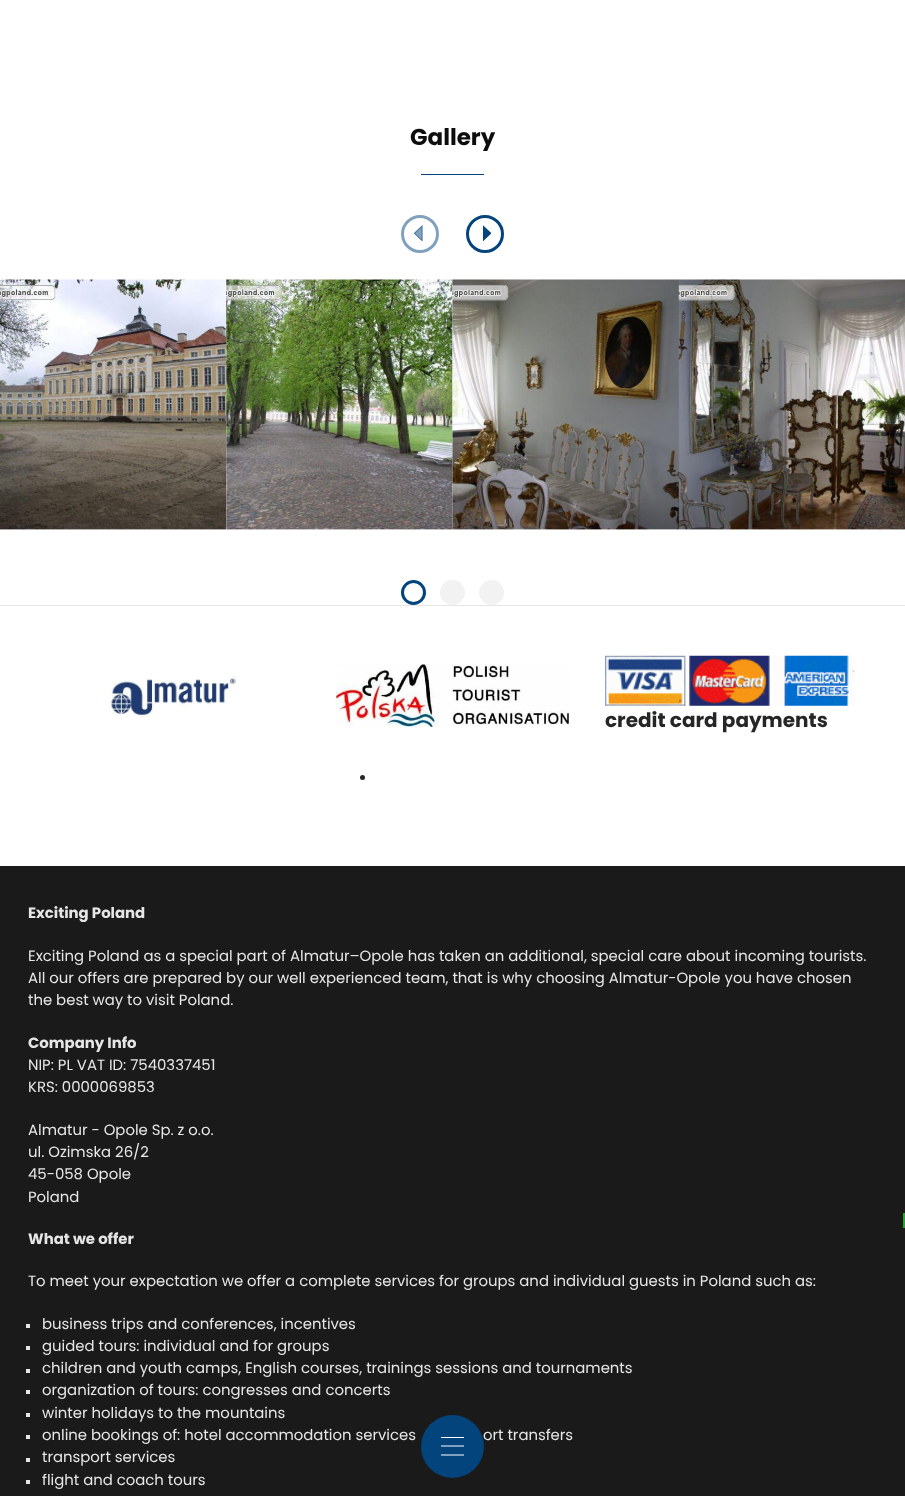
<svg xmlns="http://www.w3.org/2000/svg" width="905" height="1496">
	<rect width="100%" height="100%" fill="#FFFFFF" />
	<text x="410" y="145" font-family="Poppins" font-size="23" font-weight="700" fill="#0D0D0D">Gallery</text>
	<rect x="421" y="174" width="63" height="1" fill="#03447C" />
	<circle cx="420" cy="234" r="17.5" fill="none" stroke="#81A2BE" stroke-width="3" />
	<image x="414" y="225" width="9" height="16" href="assets/img1.png" />
	<circle cx="485" cy="234" r="17.5" fill="none" stroke="#03447C" stroke-width="3" />
	<image x="483" y="225" width="8" height="16" href="assets/img2.png" />
	<image x="0" y="279" width="227" height="251" href="assets/img3.png" />
	<image x="226" y="279" width="227" height="251" href="assets/img4.png" />
	<image x="452" y="279" width="227" height="251" href="assets/img5.png" />
	<image x="678" y="279" width="227" height="251" href="assets/img6.png" />
	<circle cx="413.5" cy="592.5" r="11" fill="none" stroke="#03447C" stroke-width="3" />
	<circle cx="452.5" cy="592.5" r="11" fill="#F2F2F2" stroke="#F2F2F2" stroke-width="3" />
	<circle cx="491.5" cy="592.5" r="11" fill="#F2F2F2" stroke="#F2F2F2" stroke-width="3" />
	<rect x="0" y="866" width="905" height="630" fill="#1A1A1A" />
	<rect x="903" y="1213" width="2" height="15" fill="#1EA933" />
	<rect x="0" y="605" width="905" height="1" fill="#E6E6E6" />
	<image x="109" y="675" width="128" height="43" href="assets/img7.png" />
	<image x="336" y="664" width="233" height="63" href="assets/img8.png" />
	<image x="605" y="655" width="250" height="51" href="assets/img9.png" />
	<text x="605" y="727" font-family="Poppins" font-size="20" font-weight="700" fill="#262626">credit card payments</text>
	<circle cx="362.5" cy="777.5" r="2.5" fill="#262626" />
	<text x="28" y="918" font-family="Poppins" font-size="14.88" font-weight="700" fill="#E6E6E6">Exciting Poland</text>
	<g font-family="Poppins" font-size="14.88" fill="#E6E6E6">
		<text x="28" y="961">Exciting Poland as a special part of Almatur–Opole has taken an additional, special care about incoming tourists.</text>
		<text x="28" y="983">All our offers are prepared by our well experienced team, that is why choosing Almatur-Opole you have chosen</text>
		<text x="28" y="1005">the best way to visit Poland.</text>
	</g>
	<text x="28" y="1048" font-family="Poppins" font-size="14.88" font-weight="700" fill="#E6E6E6">Company Info</text>
	<g font-family="Poppins" font-size="14.88" fill="#E6E6E6">
		<text x="28" y="1070">NIP: PL VAT ID: 7540337451</text>
		<text x="28" y="1092">KRS: 0000069853</text>
		<text x="28" y="1135">Almatur - Opole Sp. z o.o.</text>
		<text x="28" y="1157">ul. Ozimska 26/2</text>
		<text x="28" y="1179">45-058 Opole</text>
		<text x="28" y="1202">Poland</text>
	</g>
	<text x="28" y="1244" font-family="Poppins" font-size="14.88" font-weight="700" fill="#E6E6E6">What we offer</text>
	<text x="28" y="1286" font-family="Poppins" font-size="14.88" fill="#E6E6E6">To meet your expectation we offer a complete services for groups and individual guests in Poland such as:</text>
	<rect x="26" y="1324" width="4" height="4" fill="#E6E6E6" />
	<text x="42" y="1329" font-family="Poppins" font-size="14.88" fill="#E6E6E6">business trips and conferences, incentives</text>
	<rect x="26" y="1346" width="4" height="4" fill="#E6E6E6" />
	<text x="42" y="1351" font-family="Poppins" font-size="14.88" fill="#E6E6E6">guided tours: individual and for groups</text>
	<rect x="26" y="1369" width="4" height="4" fill="#E6E6E6" />
	<text x="42" y="1373" font-family="Poppins" font-size="14.88" fill="#E6E6E6">children and youth camps, English courses, trainings sessions and tournaments</text>
	<rect x="26" y="1390" width="4" height="4" fill="#E6E6E6" />
	<text x="42" y="1395" font-family="Poppins" font-size="14.88" fill="#E6E6E6">organization of tours: congresses and concerts</text>
	<rect x="26" y="1413" width="4" height="4" fill="#E6E6E6" />
	<text x="42" y="1418" font-family="Poppins" font-size="14.88" fill="#E6E6E6">winter holidays to the mountains</text>
	<rect x="26" y="1435" width="4" height="4" fill="#E6E6E6" />
	<g font-family="Poppins" font-size="14.88" fill="#E6E6E6">
		<text x="42" y="1440">online bookings of: hotel accommodation services</text>
		<text x="483" y="1440">ort transfers</text>
	</g>
	<rect x="26" y="1458" width="4" height="4" fill="#E6E6E6" />
	<text x="42" y="1462" font-family="Poppins" font-size="14.88" fill="#E6E6E6">transport services</text>
	<rect x="26" y="1480" width="4" height="4" fill="#E6E6E6" />
	<text x="42" y="1485" font-family="Poppins" font-size="14.88" fill="#E6E6E6">flight and coach tours</text>
	<circle cx="452.5" cy="1446.5" r="31.5" fill="#03447C" />
	<rect x="441" y="1437" width="23" height="1" fill="#FFFFFF" />
	<path d="M441 1446H464M441 1455H464" fill="none" stroke="#FFFFFF" stroke-width="1.2" stroke-linejoin="round" />
</svg>
